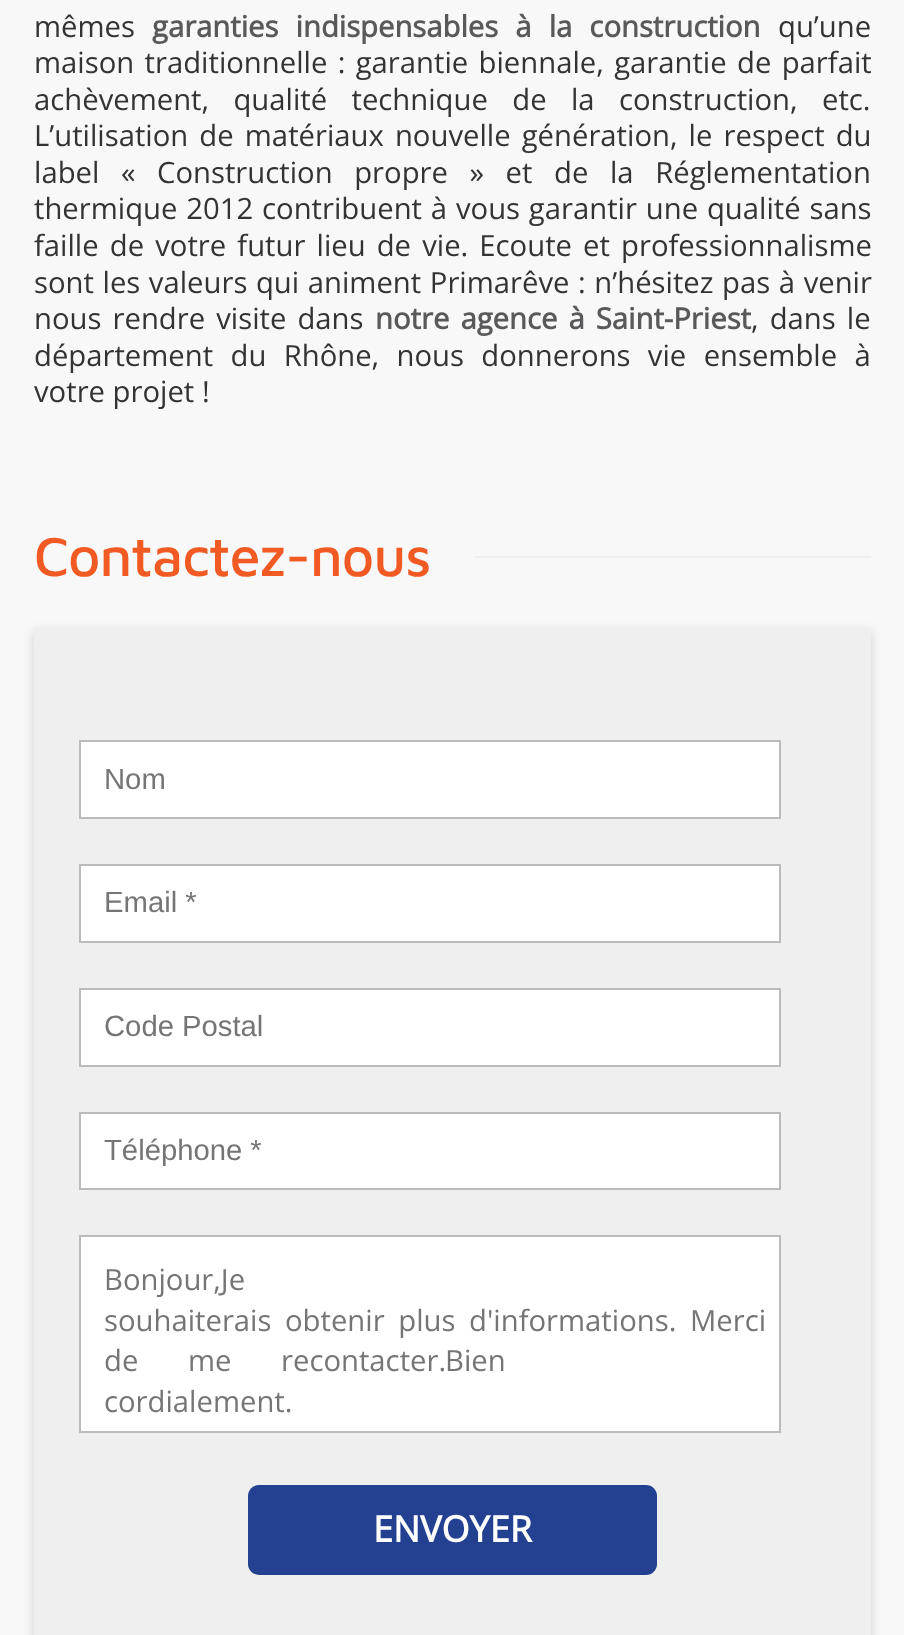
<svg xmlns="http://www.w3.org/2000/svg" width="904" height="1635">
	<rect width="100%" height="100%" fill="#F8F8F8" />
	<text x="34" y="37" font-family="Open Sans" font-size="29.25" fill="#333333">mêmes</text>
	<text x="152" y="37" word-spacing="9.5" font-family="Open Sans" font-size="29.25" font-weight="700" fill="#59595B">garanties indispensables à la construction</text>
	<g font-family="Open Sans" font-size="29.25" fill="#333333">
		<text x="778" y="37">qu’une</text>
		<text x="34" y="73" word-spacing="2.75">maison traditionnelle : garantie biennale, garantie de parfait</text>
		<text x="34" y="110" word-spacing="16.75">achèvement, qualité technique de la construction, etc.</text>
		<text x="34" y="146" word-spacing="3.5">L’utilisation de matériaux nouvelle génération, le respect du</text>
		<text x="34" y="183" word-spacing="14">label « Construction propre » et de la Réglementation</text>
		<text x="34" y="219" word-spacing="1.25">thermique 2012 contribuent à vous garantir une qualité sans</text>
		<text x="34" y="256" word-spacing="3.5">faille de votre futur lieu de vie. Ecoute et professionnalisme</text>
		<text x="34" y="293" word-spacing="1">sont les valeurs qui animent Primarêve : n’hésitez pas à venir</text>
		<text x="34" y="329" word-spacing="3.5">nous rendre visite dans</text>
	</g>
	<text x="375" y="329" word-spacing="3.5" font-family="Open Sans" font-size="29.25" font-weight="700" fill="#59595B">notre agence à Saint-Priest</text>
	<g font-family="Open Sans" font-size="29.25" fill="#333333">
		<text x="751" y="329" word-spacing="3.5">, dans le</text>
		<text x="34" y="366" word-spacing="9.75">département du Rhône, nous donnerons vie ensemble à</text>
		<text x="34" y="402">votre projet !</text>
	</g>
	<text x="34" y="576" font-family="Maven Pro" font-size="56.25" font-weight="500" letter-spacing="-1.1" fill="#F15A23">Contactez-nous</text>
	<rect x="475" y="556" width="396" height="2" fill="#EFEFEF" />
	<rect x="34" y="632" width="837" height="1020" fill="#000000" fill-opacity="0.16" filter="blur(5.5px)" />
	<rect x="34" y="628" width="837" height="1007" fill="#EFEFEF" />
	<rect x="80" y="741" width="700" height="77" fill="#FFFFFF" stroke="#BBBBBB" stroke-width="2" />
	<text x="104" y="789" font-family="Liberation Sans" font-size="29.25" fill="#757575">Nom</text>
	<rect x="80" y="865" width="700" height="77" fill="#FFFFFF" stroke="#BBBBBB" stroke-width="2" />
	<text x="104" y="912" font-family="Liberation Sans" font-size="29.25" fill="#757575">Email *</text>
	<rect x="80" y="989" width="700" height="77" fill="#FFFFFF" stroke="#BBBBBB" stroke-width="2" />
	<text x="104" y="1036" font-family="Liberation Sans" font-size="29.25" fill="#757575">Code Postal</text>
	<rect x="80" y="1113" width="700" height="76" fill="#FFFFFF" stroke="#BBBBBB" stroke-width="2" />
	<text x="104" y="1160" font-family="Liberation Sans" font-size="29.25" fill="#757575">Téléphone *</text>
	<rect x="80" y="1236" width="700" height="196" fill="#FFFFFF" stroke="#BBBBBB" stroke-width="2" />
	<g font-family="Open Sans" font-size="29.25" fill="#757575">
		<text x="104" y="1290">Bonjour,Je</text>
		<text x="104" y="1331" word-spacing="6">souhaiterais obtenir plus d'informations.</text>
		<text x="690" y="1331">Merci</text>
		<text x="104" y="1371" word-spacing="42">de me recontacter.</text>
		<text x="445" y="1371">Bien</text>
		<text x="104" y="1412">cordialement.</text>
	</g>
	<rect x="248" y="1485" width="409" height="90" rx="11" fill="#244191" />
	<text x="373" y="1542" font-family="Open Sans" font-size="36" font-weight="700" fill="#FFFFFF">ENVOYER</text>
</svg>
